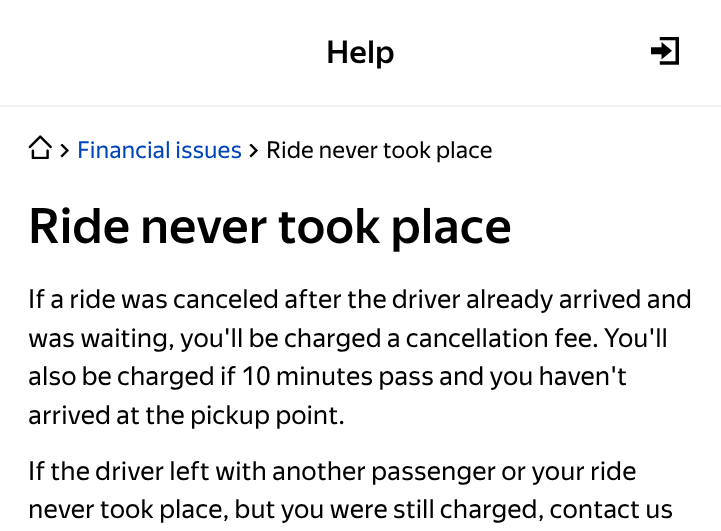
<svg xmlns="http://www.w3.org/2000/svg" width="721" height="531">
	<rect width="100%" height="100%" fill="#FFFFFF" />
	<rect x="0" y="105" width="721" height="2" fill="#F0F0F0" />
	<text x="326" y="63" font-family="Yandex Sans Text" font-size="31.5" font-weight="500" fill="#000000">Help</text>
	<image x="651" y="37" width="28" height="28" href="assets/img1.png" />
	<image x="28" y="135" width="24" height="24" href="assets/img2.png" />
	<image x="60" y="144" width="9" height="14" href="assets/img3.png" />
	<text x="77" y="158" font-family="Yandex Sans Text" font-size="23.5" fill="#0044BB">Financial issues</text>
	<image x="249" y="144" width="9" height="14" href="assets/img3.png" />
	<text x="266" y="158" font-family="Yandex Sans Text" font-size="23.5" fill="#000000">Ride never took place</text>
	<text x="28" y="243" font-family="Yandex Sans Text" font-size="49" font-weight="500" fill="#000000">Ride never took place</text>
	<g font-family="Yandex Sans Text" font-size="26.25" fill="#000000">
		<text x="28" y="308">If a ride was canceled after the driver already arrived and</text>
		<text x="28" y="347">was waiting, you'll be charged a cancellation fee. You'll</text>
		<text x="28" y="385">also be charged if 10 minutes pass and you haven't</text>
		<text x="28" y="424">arrived at the pickup point.</text>
		<text x="28" y="480">If the driver left with another passenger or your ride</text>
		<text x="28" y="518">never took place, but you were still charged, contact us</text>
	</g>
</svg>
